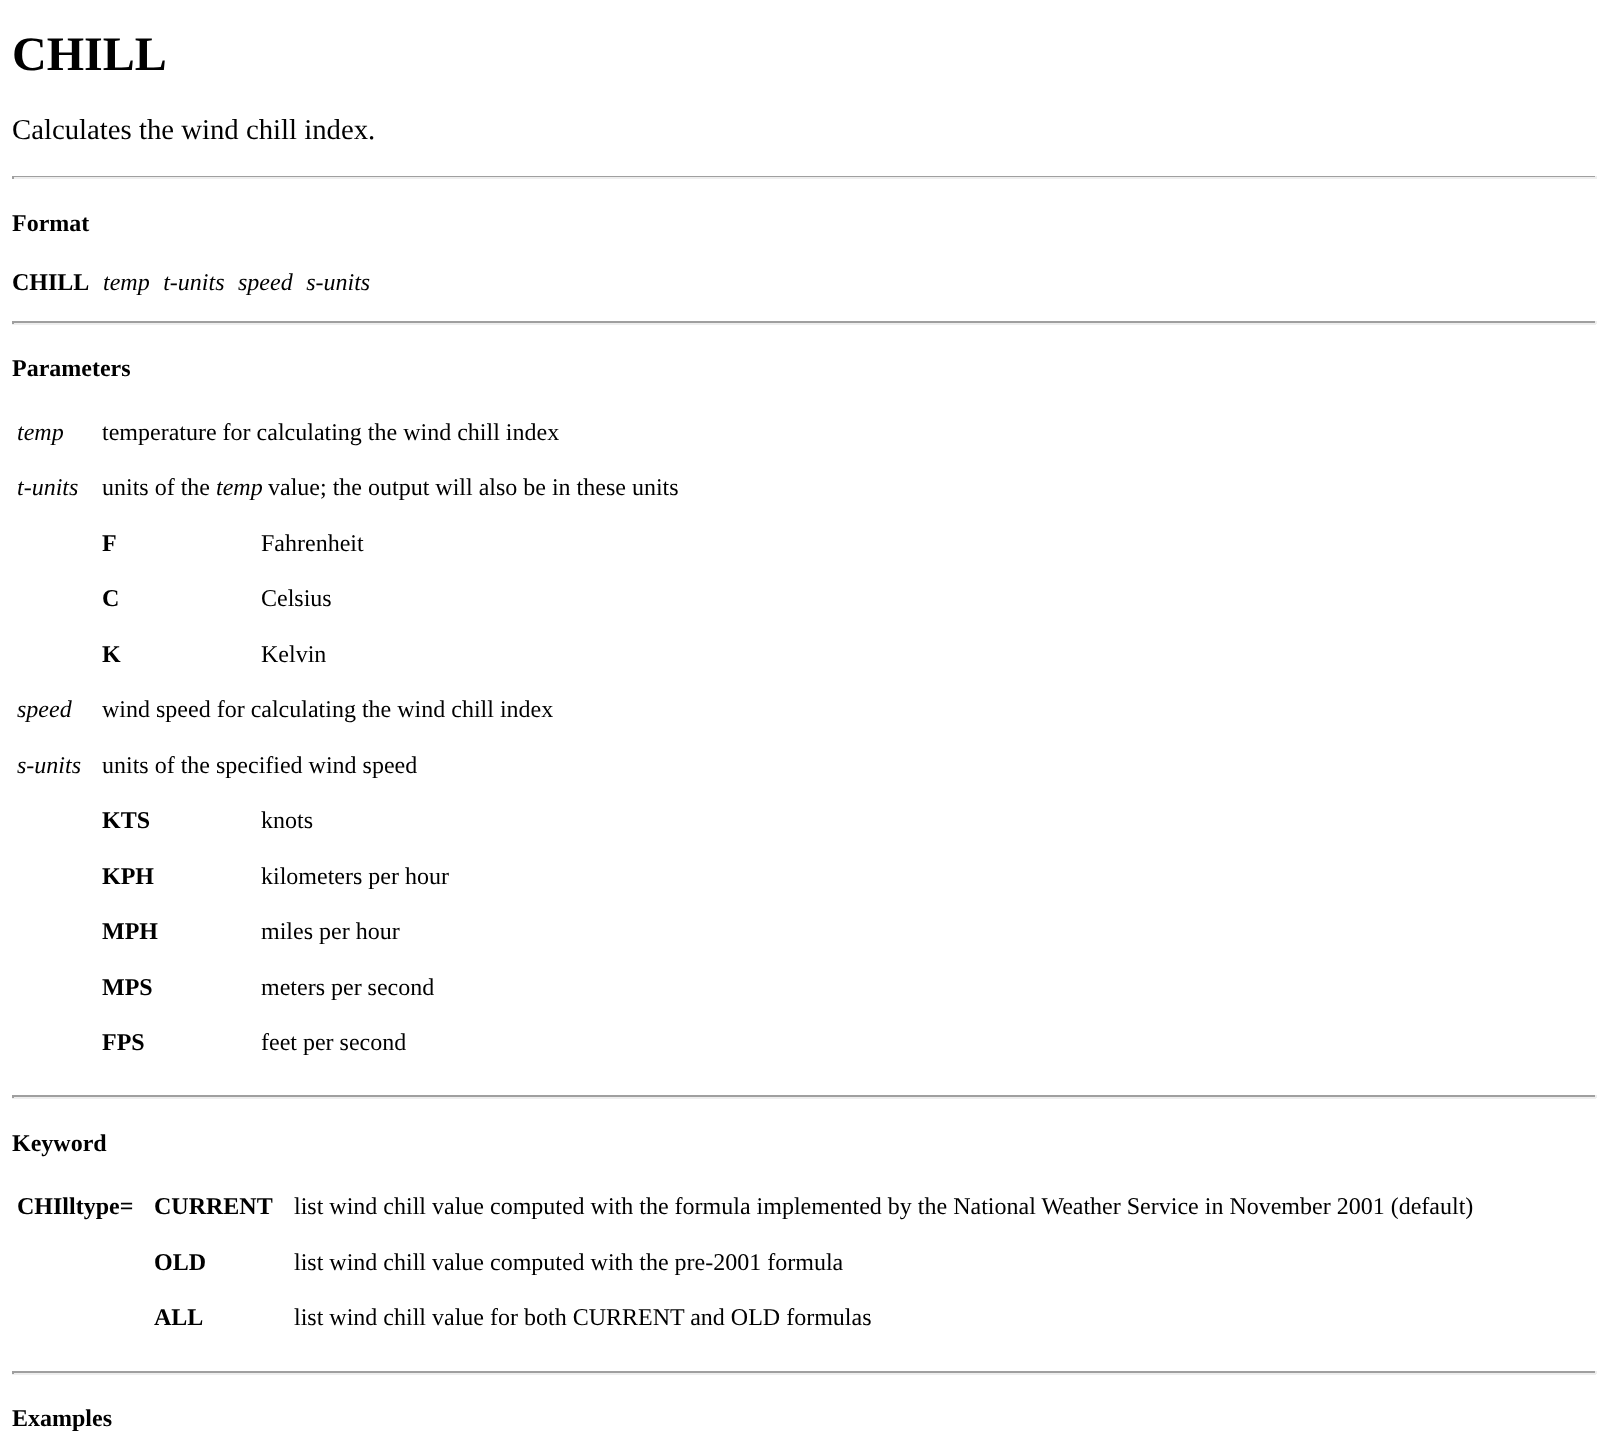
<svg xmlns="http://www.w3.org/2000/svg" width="1608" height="1456">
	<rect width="100%" height="100%" fill="#FFFFFF" />
	<text x="12" y="70" font-family="Liberation Serif" font-size="48" font-weight="700" fill="#000000">CHILL</text>
	<text x="12" y="139" font-family="Liberation Serif" font-size="28.75" fill="#000000">Calculates the wind chill index.</text>
	<rect x="12" y="176" width="1584" height="1" fill="#9F9F9F" />
	<rect x="1595" y="176" width="2" height="3" fill="#EEEEEE" />
	<rect x="12" y="177" width="1584" height="2" fill="#EEEEEE" />
	<rect x="12" y="176" width="2" height="3" fill="#9F9F9F" />
	<g font-family="Liberation Serif" font-size="24" font-weight="700" fill="#000000">
		<text x="12" y="231">Format</text>
		<text x="12" y="290">CHILL</text>
	</g>
	<text x="103" y="290" word-spacing="7.5" font-family="Liberation Serif" font-size="24" font-style="italic" fill="#000000">temp t-units speed s-units</text>
	<rect x="12" y="321" width="1584" height="2" fill="#9F9F9F" />
	<rect x="1595" y="321" width="2" height="3" fill="#EEEEEE" />
	<rect x="12" y="323" width="1584" height="2" fill="#EEEEEE" />
	<rect x="12" y="321" width="2" height="3" fill="#9F9F9F" />
	<text x="12" y="376" font-family="Liberation Serif" font-size="24" font-weight="700" fill="#000000">Parameters</text>
	<text x="17" y="440" font-family="Liberation Serif" font-size="24" font-style="italic" fill="#000000">temp</text>
	<text x="102" y="440" font-family="Liberation Serif" font-size="24" fill="#000000">temperature for calculating the wind chill index</text>
	<text x="17" y="495" font-family="Liberation Serif" font-size="24" font-style="italic" fill="#000000">t-units</text>
	<text x="102" y="495" font-family="Liberation Serif" font-size="24" fill="#000000">units of the</text>
	<text x="216" y="495" font-family="Liberation Serif" font-size="24" font-style="italic" fill="#000000">temp</text>
	<text x="268" y="495" font-family="Liberation Serif" font-size="24" fill="#000000">value; the output will also be in these units</text>
	<text x="102" y="551" font-family="Liberation Serif" font-size="24" font-weight="700" fill="#000000">F</text>
	<text x="261" y="551" font-family="Liberation Serif" font-size="24" fill="#000000">Fahrenheit</text>
	<text x="102" y="606" font-family="Liberation Serif" font-size="24" font-weight="700" fill="#000000">C</text>
	<text x="261" y="606" font-family="Liberation Serif" font-size="24" fill="#000000">Celsius</text>
	<text x="102" y="662" font-family="Liberation Serif" font-size="24" font-weight="700" fill="#000000">K</text>
	<text x="261" y="662" font-family="Liberation Serif" font-size="24" fill="#000000">Kelvin</text>
	<text x="17" y="717" font-family="Liberation Serif" font-size="24" font-style="italic" fill="#000000">speed</text>
	<text x="102" y="717" font-family="Liberation Serif" font-size="24" fill="#000000">wind speed for calculating the wind chill index</text>
	<text x="17" y="773" font-family="Liberation Serif" font-size="24" font-style="italic" fill="#000000">s-units</text>
	<text x="102" y="773" font-family="Liberation Serif" font-size="24" fill="#000000">units of the specified wind speed</text>
	<text x="102" y="828" font-family="Liberation Serif" font-size="24" font-weight="700" fill="#000000">KTS</text>
	<text x="261" y="828" font-family="Liberation Serif" font-size="24" fill="#000000">knots</text>
	<text x="102" y="884" font-family="Liberation Serif" font-size="24" font-weight="700" fill="#000000">KPH</text>
	<text x="261" y="884" font-family="Liberation Serif" font-size="24" fill="#000000">kilometers per hour</text>
	<text x="102" y="939" font-family="Liberation Serif" font-size="24" font-weight="700" fill="#000000">MPH</text>
	<text x="261" y="939" font-family="Liberation Serif" font-size="24" fill="#000000">miles per hour</text>
	<text x="102" y="995" font-family="Liberation Serif" font-size="24" font-weight="700" fill="#000000">MPS</text>
	<text x="261" y="995" font-family="Liberation Serif" font-size="24" fill="#000000">meters per second</text>
	<text x="102" y="1050" font-family="Liberation Serif" font-size="24" font-weight="700" fill="#000000">FPS</text>
	<text x="261" y="1050" font-family="Liberation Serif" font-size="24" fill="#000000">feet per second</text>
	<rect x="12" y="1095" width="1584" height="2" fill="#9F9F9F" />
	<rect x="1595" y="1095" width="2" height="3" fill="#EEEEEE" />
	<rect x="12" y="1097" width="1584" height="2" fill="#EEEEEE" />
	<rect x="12" y="1095" width="2" height="3" fill="#9F9F9F" />
	<g font-family="Liberation Serif" font-size="24" font-weight="700" fill="#000000">
		<text x="12" y="1151">Keyword</text>
		<text x="17" y="1214">CHIlltype=</text>
		<text x="154" y="1214">CURRENT</text>
	</g>
	<text x="294" y="1214" font-family="Liberation Serif" font-size="24" fill="#000000">list wind chill value computed with the formula implemented by the National Weather Service in November 2001 (default)</text>
	<text x="154" y="1270" font-family="Liberation Serif" font-size="24" font-weight="700" fill="#000000">OLD</text>
	<text x="294" y="1270" font-family="Liberation Serif" font-size="24" fill="#000000">list wind chill value computed with the pre-2001 formula</text>
	<text x="154" y="1325" font-family="Liberation Serif" font-size="24" font-weight="700" fill="#000000">ALL</text>
	<text x="294" y="1325" font-family="Liberation Serif" font-size="24" fill="#000000">list wind chill value for both CURRENT and OLD formulas</text>
	<rect x="12" y="1371" width="1584" height="2" fill="#9F9F9F" />
	<rect x="1595" y="1371" width="2" height="3" fill="#EEEEEE" />
	<rect x="12" y="1373" width="1584" height="2" fill="#EEEEEE" />
	<rect x="12" y="1371" width="2" height="3" fill="#9F9F9F" />
	<text x="12" y="1426" font-family="Liberation Serif" font-size="24" font-weight="700" fill="#000000">Examples</text>
</svg>
